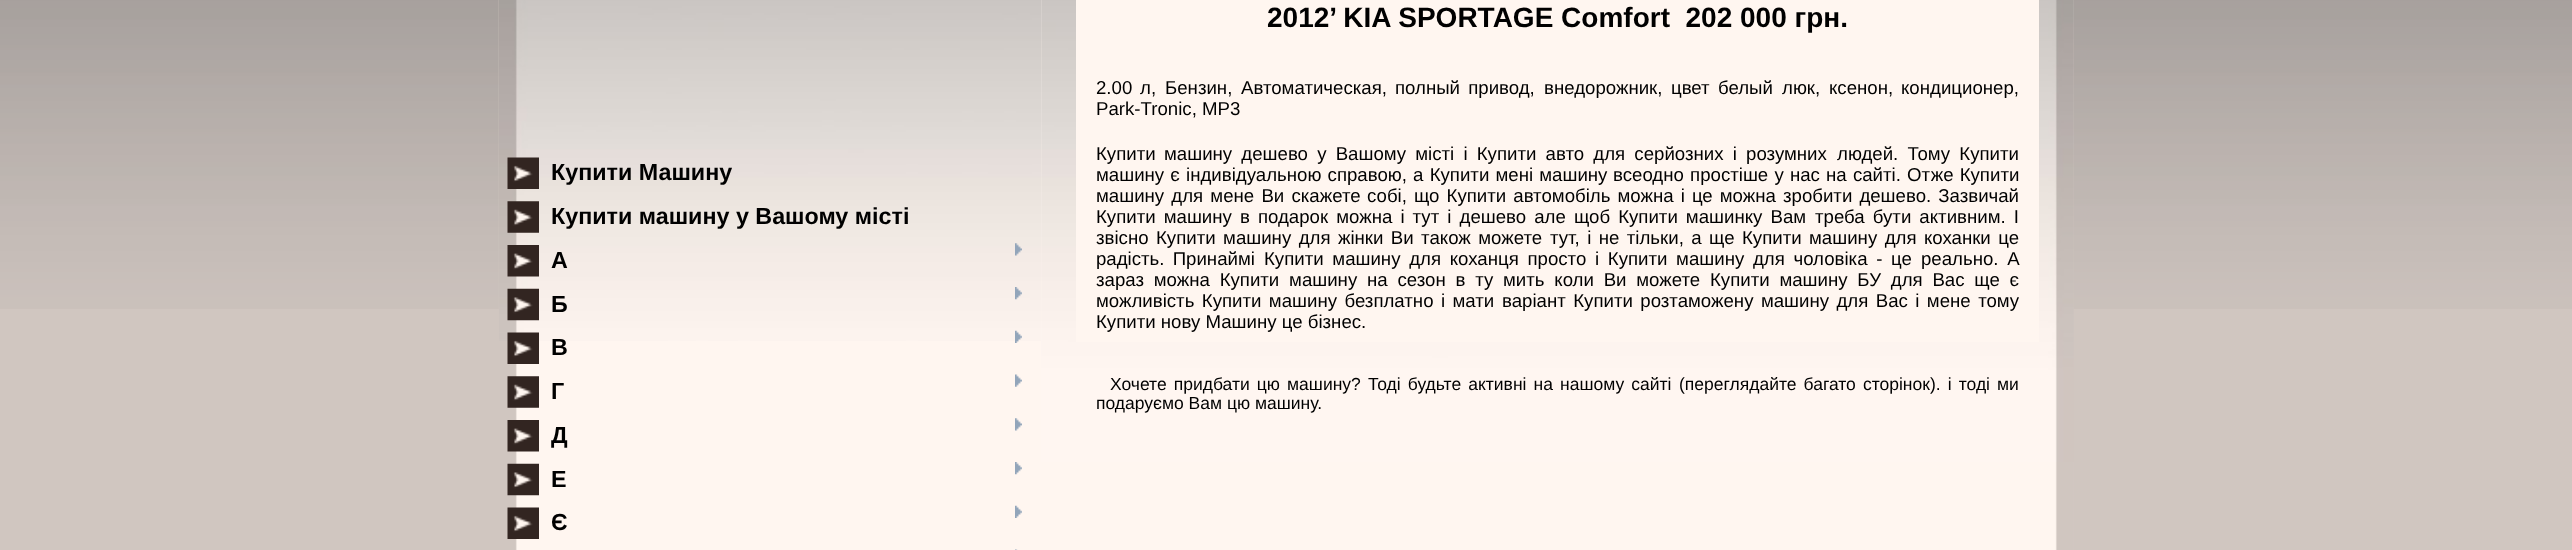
<svg xmlns="http://www.w3.org/2000/svg" width="2572" height="550">
	<rect width="100%" height="100%" fill="#D0C6C0" />
	<image x="0" y="0" width="2572" height="309" href="assets/img1.png" />
	<image x="498" y="0" width="1576" height="550" href="assets/img2.png" />
	<image x="499" y="0" width="543" height="341" href="assets/img3.png" />
	<image x="507" y="157" width="32" height="32" href="assets/img4.png" />
	<text x="551" y="180" font-family="Liberation Sans" font-size="23.3" font-weight="700" fill="#000000">Купити Машину</text>
	<image x="507" y="201" width="32" height="32" href="assets/img5.png" />
	<text x="551" y="224" font-family="Liberation Sans" font-size="23.3" font-weight="700" fill="#000000">Купити машину у Вашому місті</text>
	<image x="507" y="245" width="32" height="32" href="assets/img6.png" />
	<image x="1015" y="243" width="7" height="13" href="assets/img7.png" />
	<text x="551" y="268" font-family="Liberation Sans" font-size="23.3" font-weight="700" fill="#000000">А</text>
	<image x="507" y="288" width="32" height="33" href="assets/img8.png" />
	<image x="1015" y="287" width="7" height="13" href="assets/img9.png" />
	<text x="551" y="312" font-family="Liberation Sans" font-size="23.3" font-weight="700" fill="#000000">Б</text>
	<image x="507" y="332" width="32" height="32" href="assets/img10.png" />
	<image x="1015" y="330" width="7" height="13" href="assets/img11.png" />
	<text x="551" y="355" font-family="Liberation Sans" font-size="23.3" font-weight="700" fill="#000000">В</text>
	<image x="507" y="376" width="32" height="32" href="assets/img12.png" />
	<image x="1015" y="374" width="7" height="13" href="assets/img13.png" />
	<text x="551" y="399" font-family="Liberation Sans" font-size="23.3" font-weight="700" fill="#000000">Г</text>
	<image x="507" y="420" width="32" height="32" href="assets/img14.png" />
	<image x="1015" y="418" width="7" height="13" href="assets/img15.png" />
	<text x="551" y="443" font-family="Liberation Sans" font-size="23.3" font-weight="700" fill="#000000">Д</text>
	<image x="507" y="463" width="32" height="33" href="assets/img16.png" />
	<image x="1015" y="462" width="7" height="13" href="assets/img17.png" />
	<text x="551" y="487" font-family="Liberation Sans" font-size="23.3" font-weight="700" fill="#000000">Е</text>
	<image x="507" y="507" width="32" height="32" href="assets/img18.png" />
	<image x="1015" y="505" width="7" height="13" href="assets/img19.png" />
	<text x="551" y="530" font-family="Liberation Sans" font-size="23.3" font-weight="700" fill="#000000">Є</text>
	<image x="1015" y="549" width="3" height="1" href="assets/img20.png" />
	<image x="1041" y="0" width="1033" height="462" href="assets/img21.png" />
	<rect x="1076" y="0" width="963" height="342" fill="#FFF6F0" />
	<text x="1267" y="27" font-family="Liberation Sans" font-size="28" font-weight="700" fill="#000000" xml:space="preserve">2012’ KIA SPORTAGE Comfort  202 000 грн.</text>
	<g font-family="Liberation Sans" font-size="18.65" fill="#000000">
		<text x="1096" y="94">2.00</text>
		<text x="1140" y="94">л,</text>
		<text x="1165" y="94">Бензин,</text>
		<text x="1241" y="94">Автоматическая,</text>
		<text x="1395" y="94" word-spacing="3">полный привод,</text>
		<text x="1544" y="94">внедорожник,</text>
		<text x="1671" y="94">цвет</text>
		<text x="1718" y="94">белый</text>
		<text x="1782" y="94">люк,</text>
		<text x="1829" y="94">ксенон,</text>
		<text x="1901" y="94">кондиционер,</text>
		<text x="1096" y="115">Park-Tronic, MP3</text>
		<text x="1096" y="160">Купити</text>
		<text x="1164" y="160" word-spacing="4">машину дешево у Вашому місті і Купити авто для серйозних і розумних</text>
		<text x="1837" y="160" word-spacing="4">людей. Тому Купити</text>
		<text x="1096" y="181" word-spacing="1">машину є індивідуальною справою, а Купити мені машину</text>
		<text x="1613" y="181" word-spacing="1">всеодно простіше у нас на сайті. Отже Купити</text>
		<text x="1096" y="202" word-spacing="2">машину для мене Ви скажете</text>
		<text x="1367" y="202" word-spacing="1.9">собі, що Купити автомобіль можна і це можна зробити дешево. Зазвичай</text>
		<text x="1096" y="223" word-spacing="2.9">Купити машину в подарок можна і тут і дешево але щоб Купити машинку Вам</text>
		<text x="1815" y="223" word-spacing="2.9">треба бути активним. І</text>
		<text x="1096" y="244" word-spacing="2.25">звісно Купити машину для жінки Ви також можете</text>
		<text x="1550" y="244" word-spacing="2.25">тут, і не тільки, а ще Купити машину для коханки це</text>
		<text x="1096" y="265" word-spacing="3">радість. Принаймі</text>
		<text x="1264" y="265" word-spacing="3.5">Купити машину для коханця просто і Купити машину для чоловіка - це</text>
		<text x="1921" y="265" word-spacing="3.5">реально. А</text>
		<text x="1096" y="286" word-spacing="4.6">зараз можна Купити машину на сезон в ту мить коли Ви можете</text>
		<text x="1710" y="286" word-spacing="4.6">Купити машину БУ для Вас ще є</text>
		<text x="1096" y="307" word-spacing="2.25">можливість Купити машину безплатно і мати</text>
		<text x="1502" y="307" word-spacing="2.25">варіант Купити розтаможену машину для Вас і мене тому</text>
		<text x="1096" y="328">Купити нову Машину це бізнес.</text>
	</g>
	<g font-family="Liberation Sans" font-size="17.5" fill="#000000">
		<text x="1110" y="390" word-spacing="2.25">Хочете придбати цю машину? Тоді будьте активні на нашому сайті</text>
		<text x="1679" y="390" word-spacing="2.25">(переглядайте багато сторінок). і тоді ми</text>
		<text x="1096" y="409">подаруємо Вам цю машину.</text>
	</g>
</svg>
